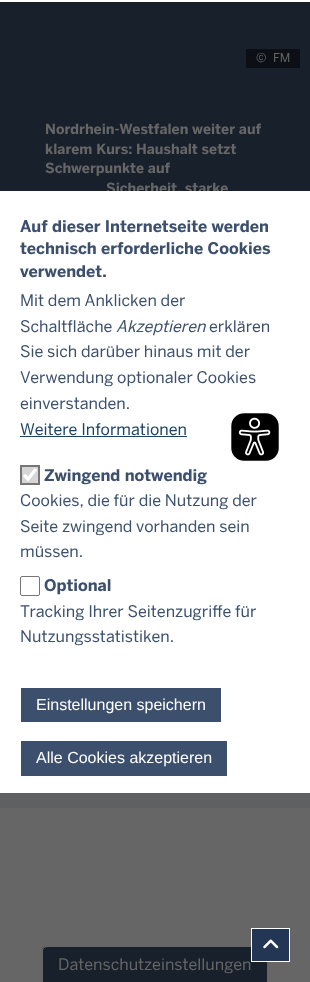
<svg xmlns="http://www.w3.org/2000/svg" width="310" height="982">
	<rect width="100%" height="100%" fill="#666666" />
	<rect x="0" y="2" width="310" height="189" fill="#18202C" />
	<rect x="246" y="49" width="54" height="19" fill="#0C1016" />
	<g font-family="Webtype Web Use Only" font-size="12" fill="#666666">
		<text x="256" y="62">©</text>
		<text x="273" y="62">FM</text>
	</g>
	<g font-family="Webtype Web Use Only" font-size="14" font-weight="700" fill="#666666">
		<text x="45" y="134">Nordrhein-Westfalen weiter auf</text>
		<text x="45" y="154">klarem Kurs: Haushalt setzt</text>
		<text x="45" y="173">Schwerpunkte auf</text>
		<text x="106" y="193">Sicherheit, starke</text>
	</g>
	<rect x="0" y="793" width="310" height="15" fill="#5E6062" />
	<path d="M47 946H263C266 946 268 948 268 951V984H42V951C42 948 44 946 47 946Z" fill="#18202C" />
	<path d="M47 947L44 948H43L45 946H265L267 948L266 949C265 948 264 947 263 947Z" fill="#666666" />
	<path d="M267 948C267.5 949 268 950 268 951V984L267 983V951C267 950 266.5 949.5 266 948.5Z" fill="#666666" />
	<rect x="251.5" y="928.5" width="38" height="33" fill="#233755" stroke="#FFFFFF" />
	<image x="263" y="939" width="16" height="10" href="assets/img1.png" />
	<rect x="0" y="0" width="310" height="2" fill="#FFFFFF" />
	<rect x="0" y="191" width="310" height="602" fill="#FFFFFF" />
	<g font-family="Webtype Web Use Only" font-size="16" font-weight="700" fill="#3C506E">
		<text x="20" y="232">Auf dieser Internetseite werden</text>
		<text x="20" y="254">technisch erforderliche Cookies</text>
		<text x="20" y="277">verwendet.</text>
	</g>
	<g font-family="Webtype Web Use Only" font-size="16" fill="#3C506E">
		<text x="20" y="306">Mit dem Anklicken der</text>
		<text x="20" y="332">Schaltfläche</text>
	</g>
	<text x="116" y="332" font-family="Webtype Web Use Only" font-size="16" font-style="italic" fill="#3C506E">Akzeptieren</text>
	<g font-family="Webtype Web Use Only" font-size="16" fill="#3C506E">
		<text x="209" y="332">erklären</text>
		<text x="20" y="357">Sie sich darüber hinaus mit der</text>
		<text x="20" y="383">Verwendung optionaler Cookies</text>
		<text x="20" y="409">einverstanden.</text>
	</g>
	<text x="20" y="435" font-family="Webtype Web Use Only" font-size="16" fill="#1B4265">Weitere Informationen</text>
	<rect x="20" y="436" width="167" height="1" fill="#1B4265" />
	<rect x="22" y="467" width="16" height="16" fill="#D6D6D6" />
	<path d="M24 475L28 479L36 469" fill="none" stroke="#FFFFFF" stroke-width="3.2" />
	<rect x="21" y="466" width="18" height="18" fill="none" stroke="#767676" stroke-width="2" />
	<text x="44" y="481" font-family="Webtype Web Use Only" font-size="16" font-weight="700" fill="#3C506E">Zwingend notwendig</text>
	<g font-family="Webtype Web Use Only" font-size="16" fill="#3C506E">
		<text x="20" y="506">Cookies, die für die Nutzung der</text>
		<text x="20" y="532">Seite zwingend vorhanden sein</text>
		<text x="20" y="557">müssen.</text>
	</g>
	<rect x="20.5" y="576.5" width="19" height="19" rx="1.5" fill="none" stroke="#767676" />
	<text x="44" y="591" font-family="Webtype Web Use Only" font-size="16" font-weight="700" fill="#3C506E">Optional</text>
	<g font-family="Webtype Web Use Only" font-size="16" fill="#3C506E">
		<text x="20" y="617">Tracking Ihrer Seitenzugriffe für</text>
		<text x="20" y="642">Nutzungsstatistiken.</text>
	</g>
	<rect x="21" y="688" width="200" height="34" fill="#3C506E" />
	<text x="36" y="710" font-family="Liberation Sans" font-size="16" fill="#FFFFFF">Einstellungen speichern</text>
	<rect x="21" y="741" width="206" height="35" fill="#3C506E" />
	<text x="36" y="763" font-family="Liberation Sans" font-size="16" fill="#FFFFFF">Alle Cookies akzeptieren</text>
	<path d="M42 949.5L43.5 947.5L44 948.5C43.5 949 43 950 43 951V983H43.5L42.5 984H42Z" fill="#666666" />
	<text x="58" y="970" font-family="Webtype Web Use Only" font-size="16" fill="#666666">Datenschutzeinstellungen</text>
	<image x="230" y="412" width="50" height="50" href="assets/img2.png" />
</svg>
